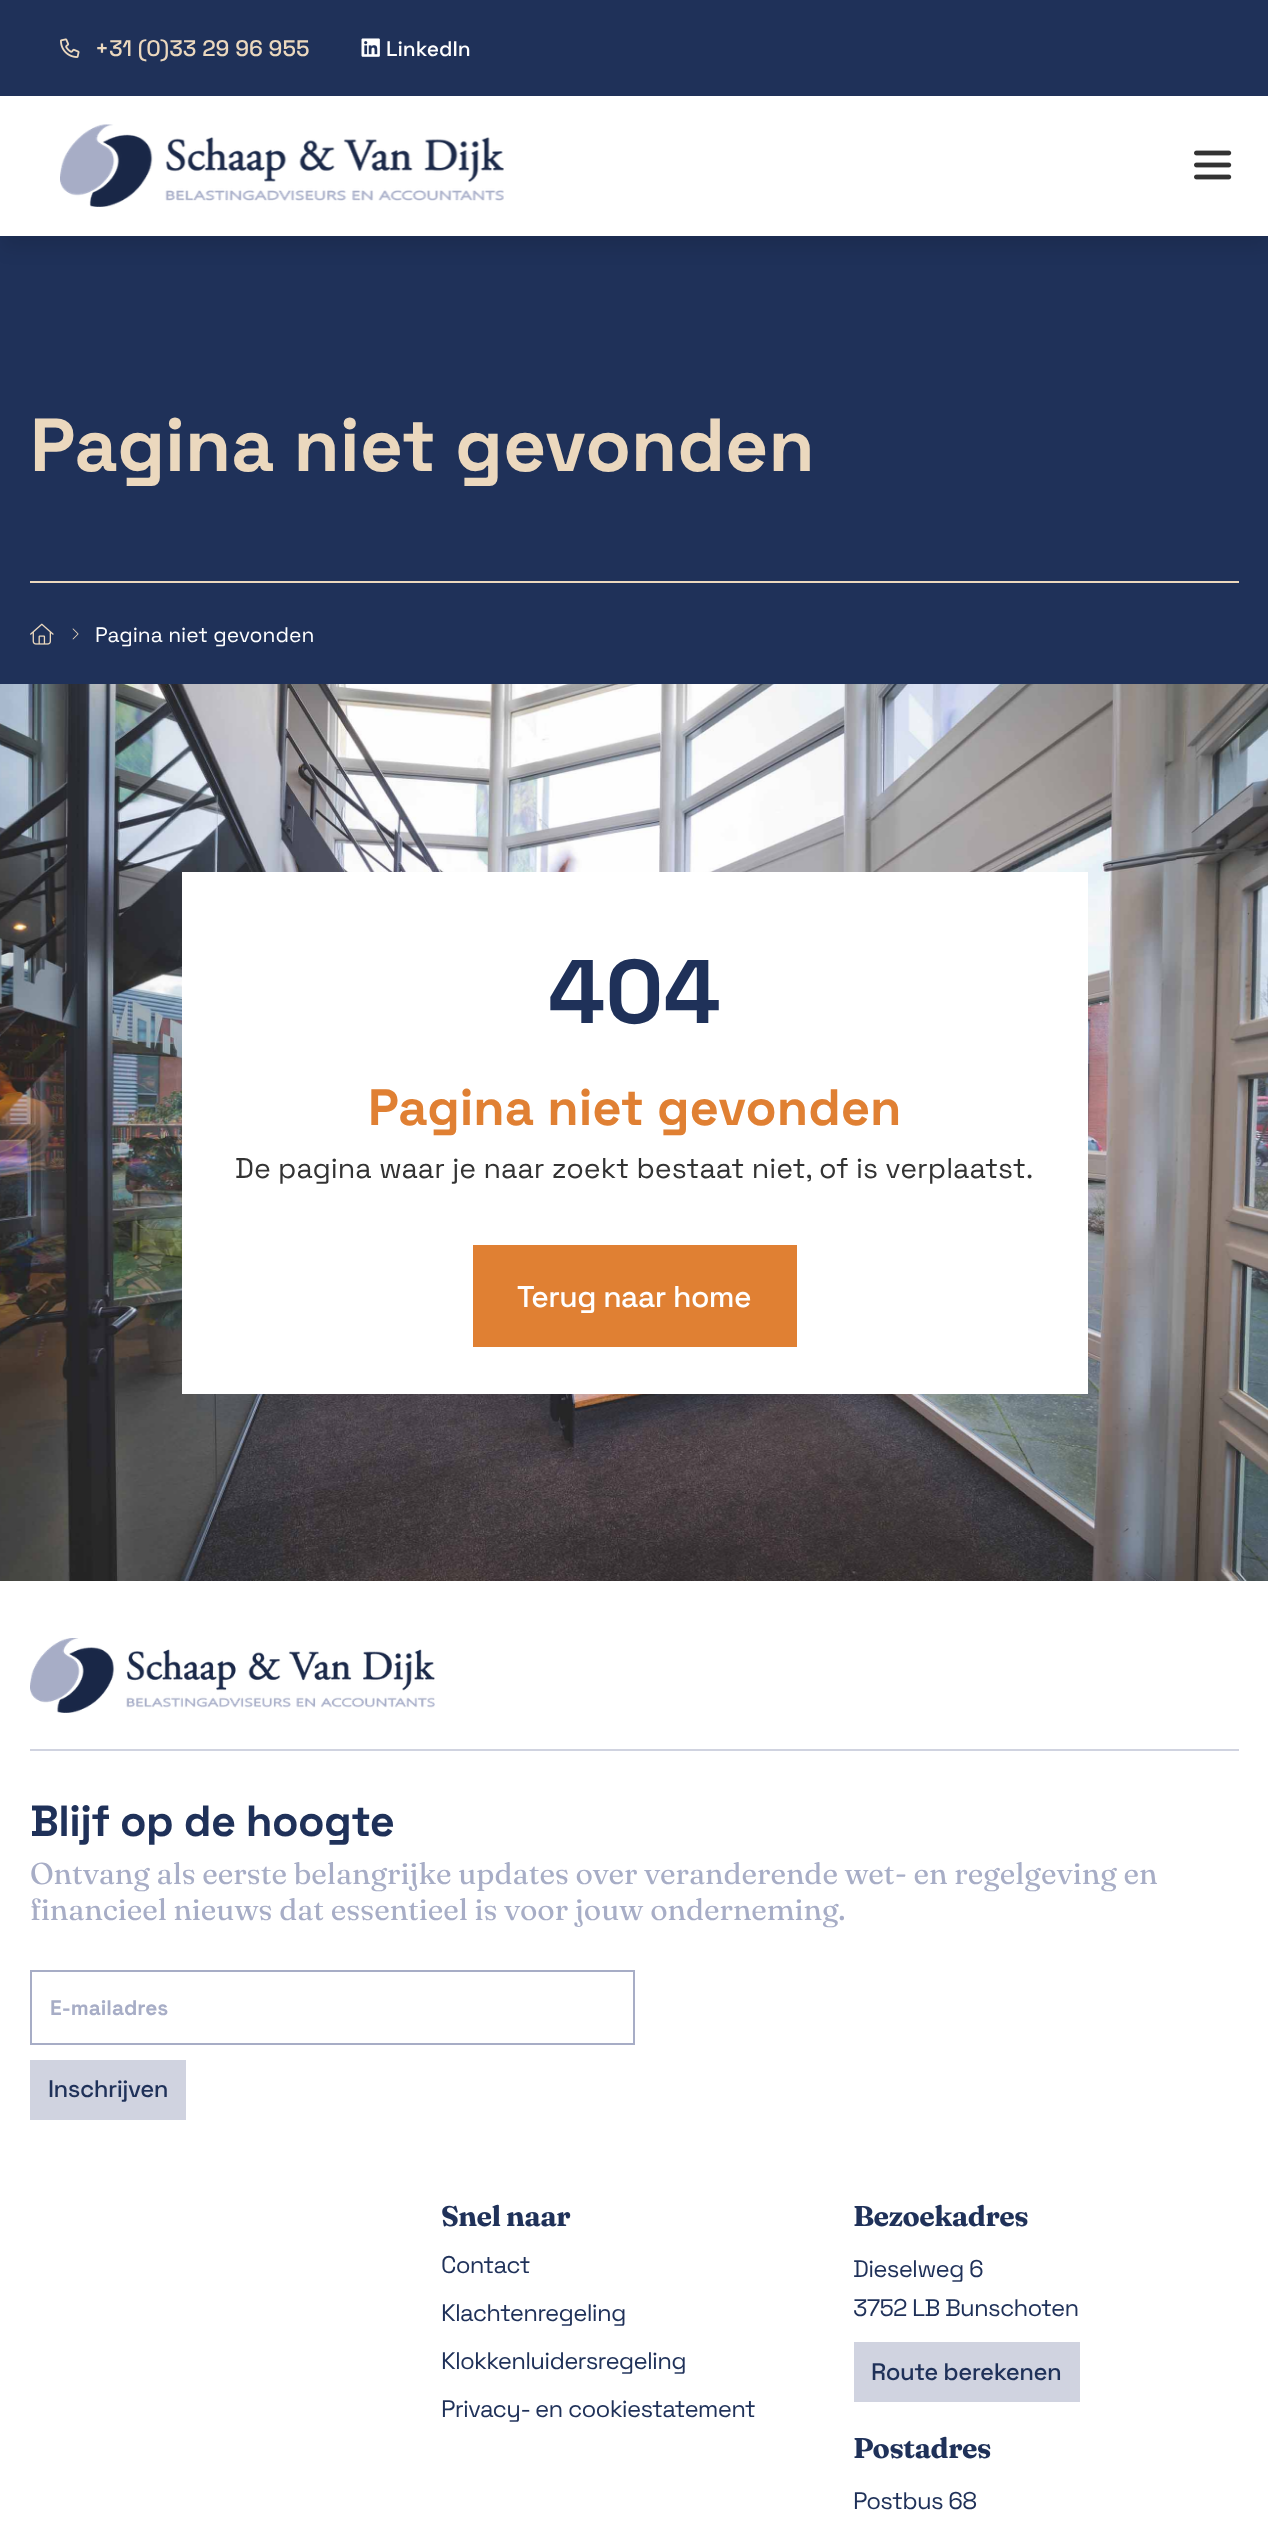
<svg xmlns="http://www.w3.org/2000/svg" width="1268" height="2526">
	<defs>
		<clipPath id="clip1"><path d="M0 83H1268V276H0ZM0 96H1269V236H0Z" clip-rule="evenodd" /></clipPath>
	</defs>
	<rect width="100%" height="100%" fill="#FFFFFF" />
	<rect x="0" y="236" width="1268" height="448" fill="#1F3159" />
	<g clip-path="url(#clip1)">
		<rect x="2" y="111" width="1266" height="137" fill="#000000" fill-opacity="0.1" filter="blur(9px)" />
	</g>
	<rect x="0" y="0" width="1268" height="96" fill="#1F3159" />
	<image x="60" y="38" width="20" height="20" href="assets/img1.png" />
	<text x="95" y="56" font-family="Space Grotesk" font-size="22.5" font-weight="500" fill="#EBD8BE">+31 (0)33 29 96 955</text>
	<image x="361" y="38" width="19" height="19" href="assets/img2.png" />
	<text x="386" y="56" font-family="Space Grotesk" font-size="21" font-weight="500" fill="#FFFFFF">LinkedIn</text>
	<image x="60" y="124" width="444" height="83" href="assets/img3.png" />
	<image x="1194" y="150" width="38" height="30" href="assets/img4.png" />
	<text x="30" y="471" font-family="Space Grotesk" font-size="75" font-weight="700" fill="#EBD8BE">Pagina niet gevonden</text>
	<rect x="30" y="581" width="1209" height="2" fill="#EBD8BE" />
	<image x="30" y="623" width="24" height="22" href="assets/img5.png" />
	<image x="72" y="628" width="7" height="12" href="assets/img6.png" />
	<text x="95" y="642" font-family="Space Grotesk" font-size="21" fill="#FFFFFF">Pagina niet gevonden</text>
	<image x="0" y="684" width="1268" height="897" href="assets/img7.png" />
	<rect x="182" y="872" width="906" height="522" fill="#FFFFFF" />
	<text x="548" y="1023" font-family="Space Grotesk" font-size="90" font-weight="700" fill="#1F3159">404</text>
	<text x="368" y="1125" font-family="Space Grotesk" font-size="51" font-weight="700" fill="#E08033">Pagina niet gevonden</text>
	<text x="235" y="1178" font-family="Space Grotesk" font-size="28.5" fill="#333333">De pagina waar je naar zoekt bestaat niet, of is verplaatst.</text>
	<rect x="473" y="1245" width="324" height="102" fill="#E08033" />
	<text x="517" y="1307" font-family="Space Grotesk" font-size="30" font-weight="500" letter-spacing="-0.5" fill="#FFFFFF">Terug naar home</text>
	<rect x="30" y="1749" width="1209" height="2" fill="#D0D3E0" />
	<image x="30" y="1638" width="405" height="75" href="assets/img8.png" />
	<text x="30" y="1836" font-family="Space Grotesk" font-size="43.5" font-weight="700" letter-spacing="-0.6" fill="#1F3159">Blijf op de hoogte</text>
	<g font-family="Fraunces" font-size="30" fill="#A7ADC6">
		<text x="30" y="1884">Ontvang als eerste belangrijke updates over veranderende wet- en regelgeving en</text>
		<text x="30" y="1920">financieel nieuws dat essentieel is voor jouw onderneming.</text>
	</g>
	<rect x="31" y="1971" width="603" height="73" fill="none" stroke="#A7ADC6" stroke-width="2" />
	<text x="50" y="2015" font-family="Space Grotesk" font-size="21" font-weight="700" fill="#A7ADC6">E-mailadres</text>
	<rect x="30" y="2060" width="156" height="60" fill="#D0D3E0" />
	<text x="48" y="2097" font-family="Space Grotesk" font-size="24" font-weight="500" letter-spacing="-0.5" fill="#1F3159">Inschrijven</text>
	<text x="441" y="2226" font-family="Fraunces" font-size="28.5" font-weight="700" letter-spacing="-0.5" fill="#1F3159">Snel naar</text>
	<g font-family="Space Grotesk" font-size="24" letter-spacing="-0.75" fill="#1F3159">
		<text x="441" y="2273">Contact</text>
		<text x="441" y="2321">Klachtenregeling</text>
		<text x="441" y="2369">Klokkenluidersregeling</text>
		<text x="441" y="2417">Privacy- en cookiestatement</text>
	</g>
	<text x="853" y="2226" font-family="Fraunces" font-size="28.5" font-weight="700" letter-spacing="-0.5" fill="#1F3159">Bezoekadres</text>
	<g font-family="Space Grotesk" font-size="24" letter-spacing="-0.75" fill="#1F3159">
		<text x="853" y="2277">Dieselweg 6</text>
		<text x="853" y="2316">3752 LB Bunschoten</text>
	</g>
	<rect x="854" y="2342" width="226" height="60" fill="#D0D3E0" />
	<text x="871" y="2380" font-family="Space Grotesk" font-size="24" font-weight="500" letter-spacing="-0.5" fill="#1F3159">Route berekenen</text>
	<text x="853" y="2458" font-family="Fraunces" font-size="28.5" font-weight="700" letter-spacing="-0.5" fill="#1F3159">Postadres</text>
	<text x="853" y="2509" font-family="Space Grotesk" font-size="24" letter-spacing="-0.75" fill="#1F3159">Postbus 68</text>
</svg>
